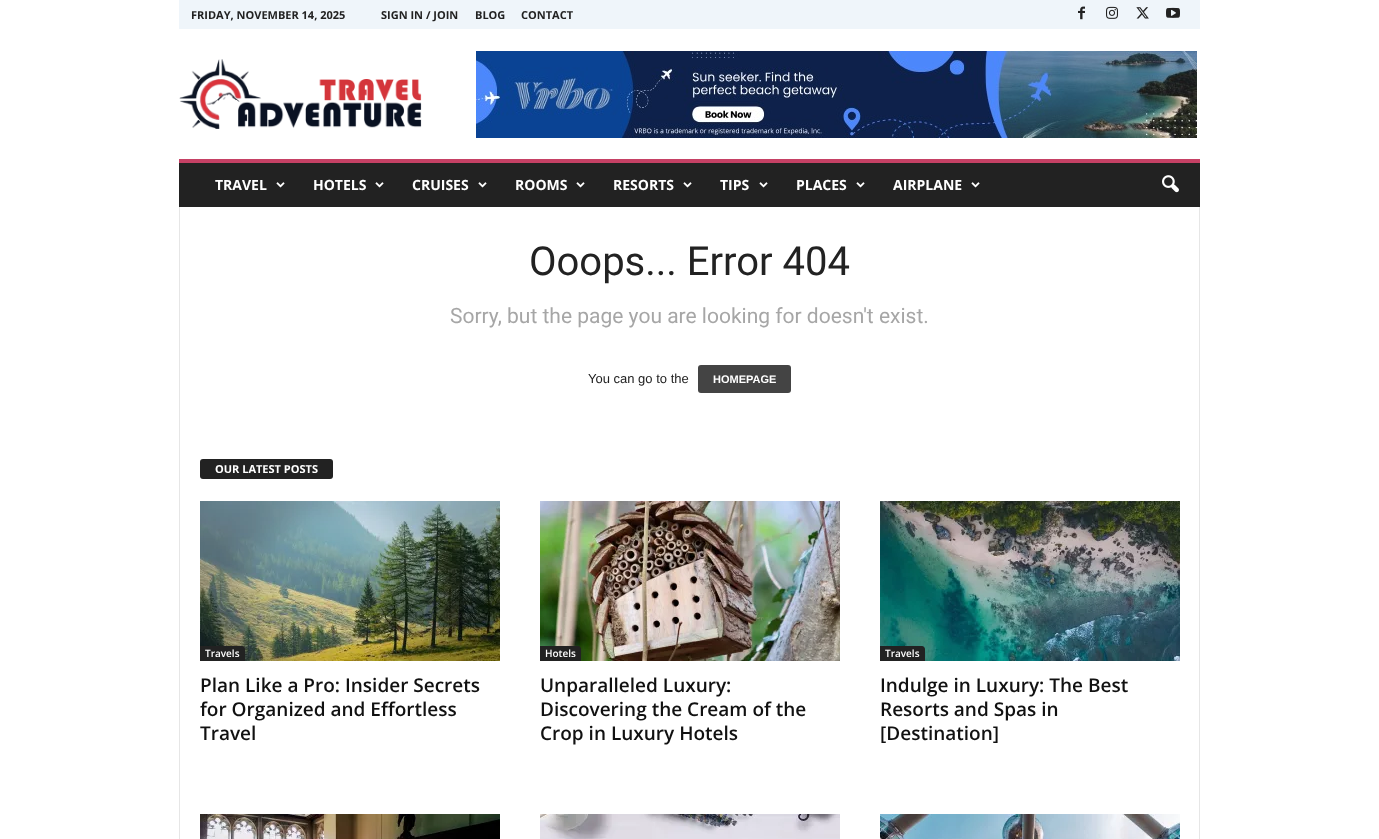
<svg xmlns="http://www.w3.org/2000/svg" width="1379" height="839">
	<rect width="100%" height="100%" fill="#FFFFFF" />
	<rect x="179" y="0" width="1021" height="29" fill="#EFF5FA" />
	<g font-family="Open Sans" font-size="11" font-weight="700" fill="#222222">
		<text x="191" y="19">FRIDAY, NOVEMBER 14, 2025</text>
		<text x="381" y="19">SIGN IN / JOIN</text>
		<text x="475" y="19">BLOG</text>
		<text x="521" y="19">CONTACT</text>
	</g>
	<image x="1078" y="6" width="7" height="14" href="assets/img1.png" />
	<image x="1106" y="6" width="12" height="13" href="assets/img2.png" />
	<image x="1136" y="7" width="13" height="12" href="assets/img3.png" />
	<image x="1166" y="7" width="14" height="11" href="assets/img4.png" />
	<image x="179" y="59" width="243" height="70" href="assets/img5.png" />
	<image x="476" y="51" width="721" height="87" href="assets/img6.png" />
	<rect x="179" y="163" width="1021" height="44" fill="#222222" />
	<rect x="179" y="159" width="1021" height="4" fill="#C64165" />
	<text x="215" y="190" font-family="Open Sans" font-size="14" font-weight="700" fill="#FFFFFF">TRAVEL</text>
	<image x="276" y="182" width="9" height="6" href="assets/img7.png" />
	<text x="313" y="190" font-family="Open Sans" font-size="14" font-weight="700" fill="#FFFFFF">HOTELS</text>
	<image x="375" y="182" width="9" height="6" href="assets/img7.png" />
	<text x="412" y="190" font-family="Open Sans" font-size="14" font-weight="700" fill="#FFFFFF">CRUISES</text>
	<image x="478" y="182" width="9" height="6" href="assets/img7.png" />
	<text x="515" y="190" font-family="Open Sans" font-size="14" font-weight="700" fill="#FFFFFF">ROOMS</text>
	<image x="576" y="182" width="9" height="6" href="assets/img7.png" />
	<text x="613" y="190" font-family="Open Sans" font-size="14" font-weight="700" fill="#FFFFFF">RESORTS</text>
	<image x="683" y="182" width="9" height="6" href="assets/img7.png" />
	<text x="720" y="190" font-family="Open Sans" font-size="14" font-weight="700" fill="#FFFFFF">TIPS</text>
	<image x="759" y="182" width="9" height="6" href="assets/img7.png" />
	<text x="796" y="190" font-family="Open Sans" font-size="14" font-weight="700" fill="#FFFFFF">PLACES</text>
	<image x="856" y="182" width="9" height="6" href="assets/img7.png" />
	<text x="893" y="190" font-family="Open Sans" font-size="14" font-weight="700" fill="#FFFFFF">AIRPLANE</text>
	<image x="971" y="182" width="9" height="6" href="assets/img7.png" />
	<image x="1162" y="175" width="17" height="18" href="assets/img8.png" />
	<rect x="179" y="207" width="1" height="632" fill="#E6E6E6" />
	<text x="529" y="275" font-family="Roboto" font-size="40" fill="#222222">Ooops... Error 404</text>
	<text x="450" y="323" font-family="Roboto" font-size="21" fill="#A6A6A6">Sorry, but the page you are looking for doesn't exist.</text>
	<text x="588" y="383" font-family="Liberation Sans" font-size="13" fill="#222222">You can go to the</text>
	<rect x="698" y="365" width="93" height="28" rx="3" fill="#444444" />
	<text x="713" y="383" font-family="Liberation Sans" font-size="11" font-weight="700" fill="#FFFFFF">HOMEPAGE</text>
	<rect x="200" y="459" width="133" height="20" rx="3" fill="#222222" />
	<text x="215" y="473" font-family="Open Sans" font-size="11" font-weight="700" fill="#FFFFFF">OUR LATEST POSTS</text>
	<image x="200" y="501" width="300" height="160" href="assets/img9.png" />
	<path d="M200 646H242C243.5 646 245 647.5 245 649V661H200Z" fill="#222222" />
	<text x="205" y="657" font-family="Open Sans" font-size="10" font-weight="600" fill="#FFFFFF">Travels</text>
	<g font-family="Open Sans" font-size="19" font-weight="600" fill="#111111">
		<text x="200" y="692">Plan Like a Pro: Insider Secrets</text>
		<text x="200" y="716">for Organized and Effortless</text>
		<text x="200" y="740">Travel</text>
	</g>
	<image x="540" y="501" width="300" height="160" href="assets/img10.png" />
	<path d="M540 646H578C579.5 646 581 647.5 581 649V661H540Z" fill="#222222" />
	<text x="545" y="657" font-family="Open Sans" font-size="10" font-weight="600" fill="#FFFFFF">Hotels</text>
	<g font-family="Open Sans" font-size="19" font-weight="600" fill="#111111">
		<text x="540" y="692">Unparalleled Luxury:</text>
		<text x="540" y="716">Discovering the Cream of the</text>
		<text x="540" y="740">Crop in Luxury Hotels</text>
	</g>
	<image x="880" y="501" width="300" height="160" href="assets/img11.png" />
	<path d="M880 646H922C923.5 646 925 647.5 925 649V661H880Z" fill="#222222" />
	<text x="885" y="657" font-family="Open Sans" font-size="10" font-weight="600" fill="#FFFFFF">Travels</text>
	<g font-family="Open Sans" font-size="19" font-weight="600" fill="#111111">
		<text x="880" y="692">Indulge in Luxury: The Best</text>
		<text x="880" y="716">Resorts and Spas in</text>
		<text x="880" y="740">[Destination]</text>
	</g>
	<image x="200" y="814" width="300" height="25" href="assets/img12.png" />
	<image x="540" y="814" width="300" height="25" href="assets/img13.png" />
	<image x="880" y="814" width="300" height="25" href="assets/img14.png" />
	<rect x="1199" y="207" width="1" height="632" fill="#E6E6E6" />
</svg>
